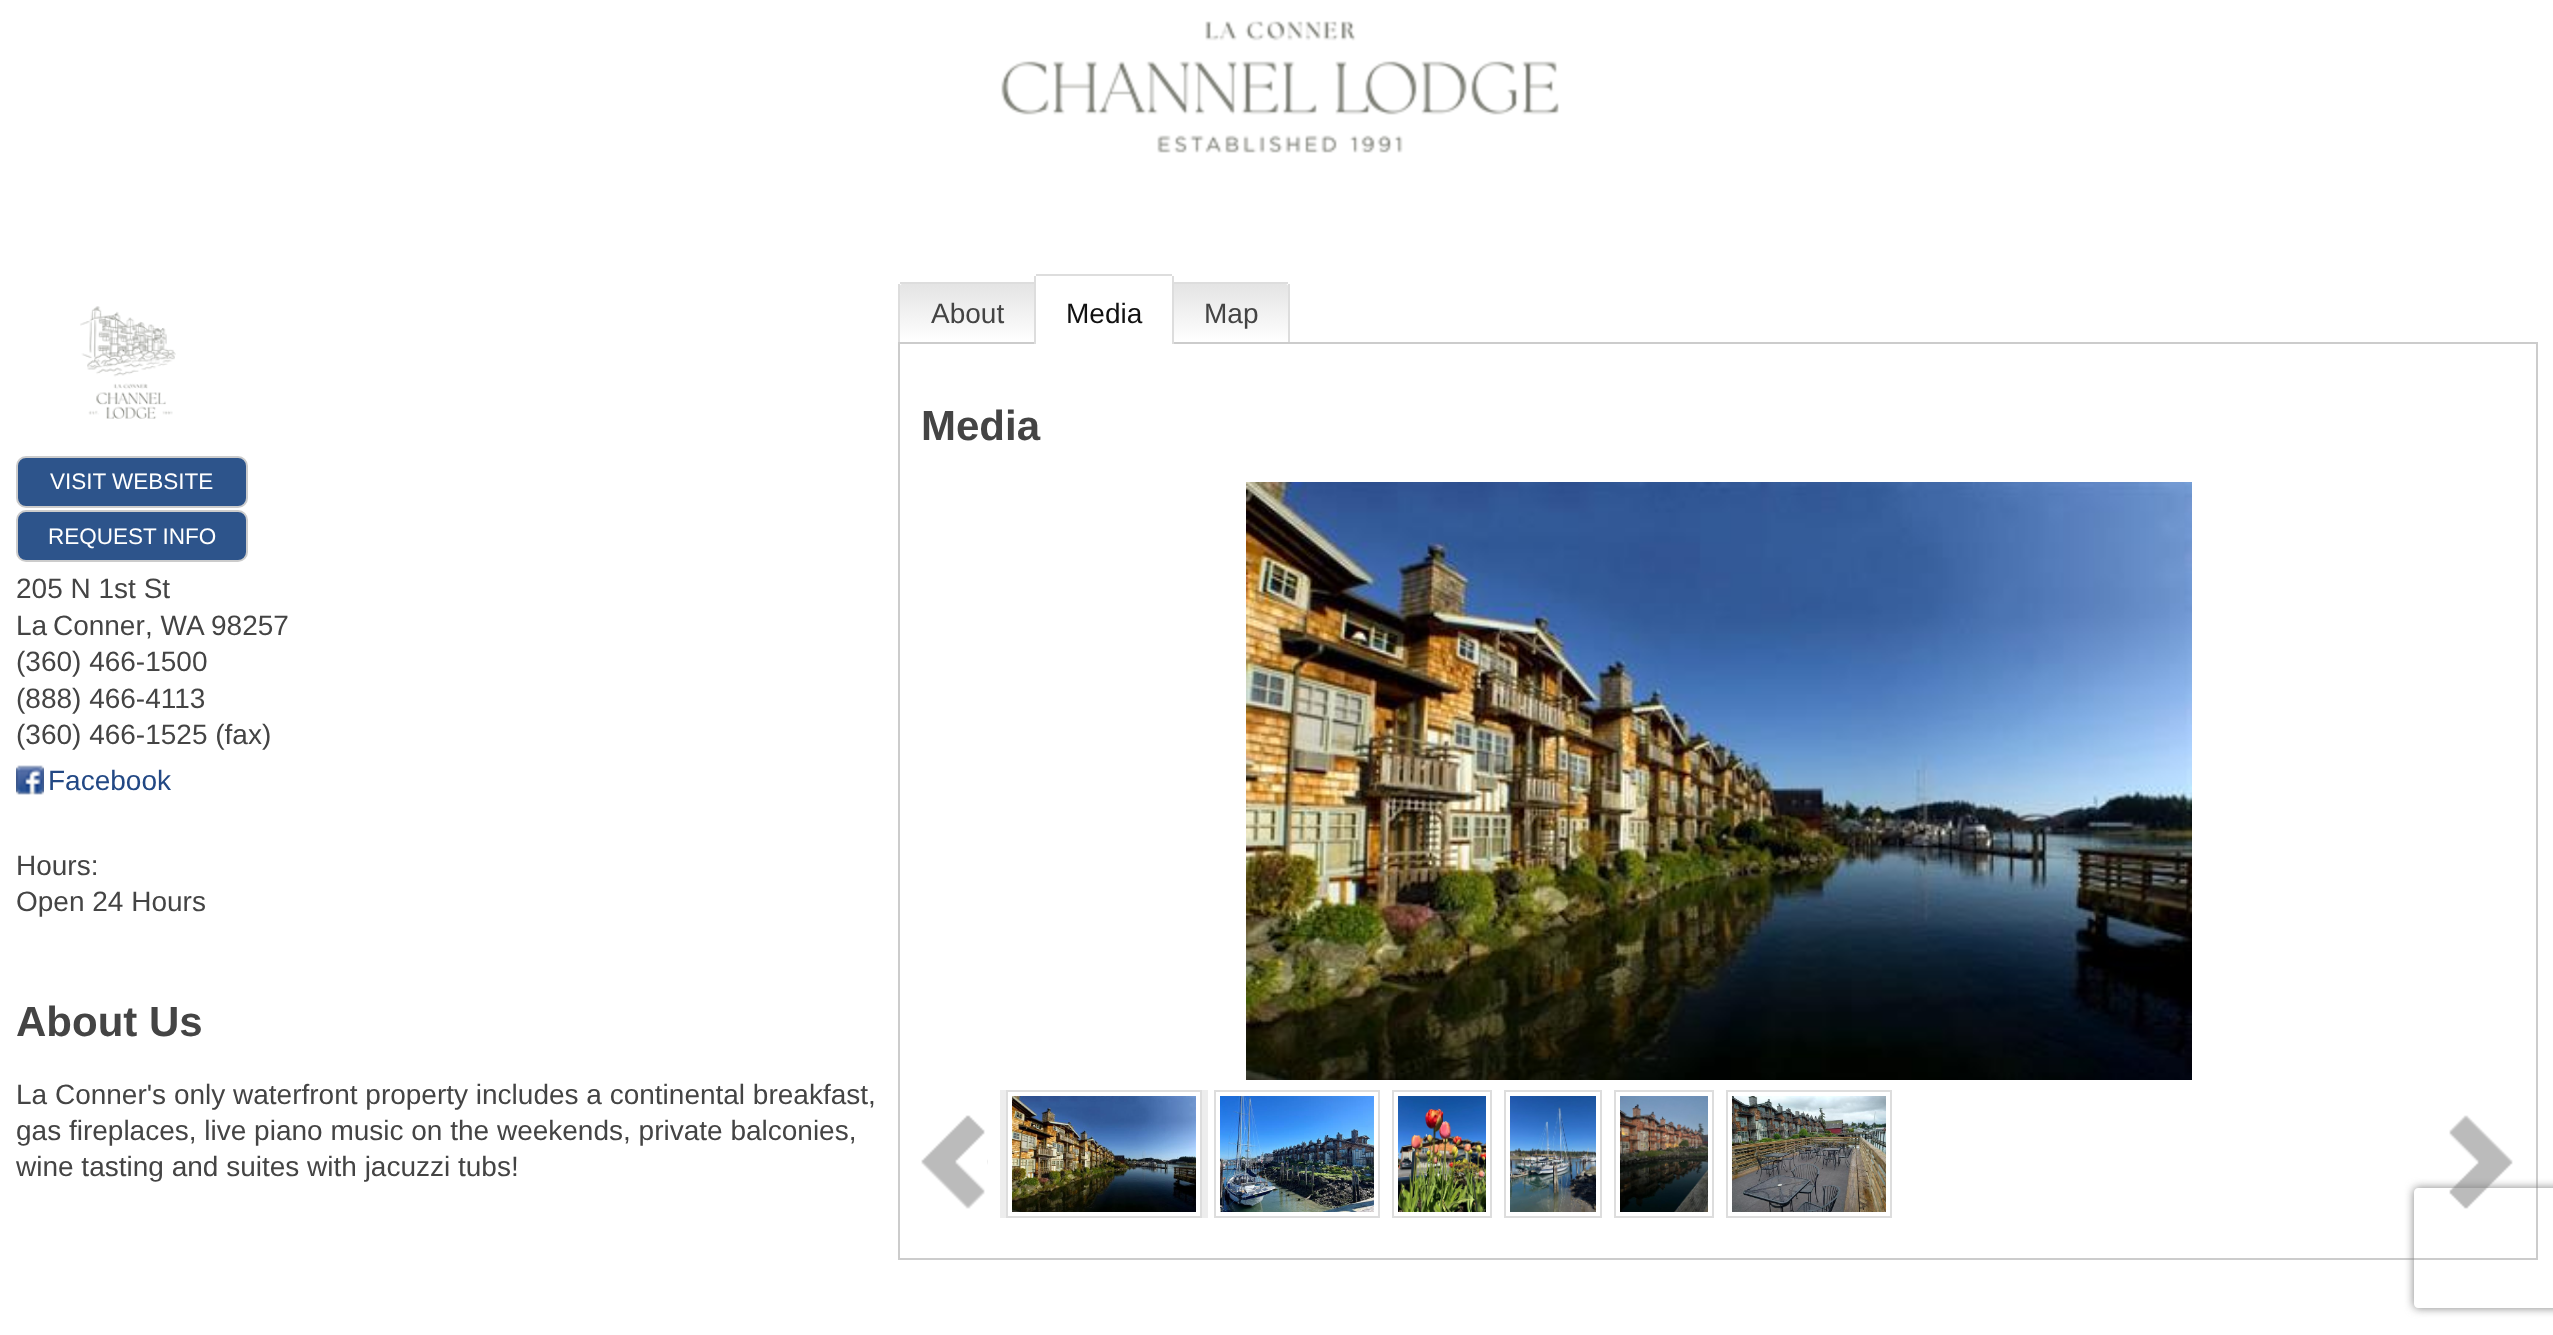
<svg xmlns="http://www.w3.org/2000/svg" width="2553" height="1335">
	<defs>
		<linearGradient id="g1" gradientUnits="userSpaceOnUse" x1="967" y1="284" x2="967" y2="342"><stop offset="0" stop-color="#E4E4E4" /><stop offset="1" stop-color="#FFFFFF" /></linearGradient>
		<linearGradient id="g2" gradientUnits="userSpaceOnUse" x1="1231" y1="284" x2="1231" y2="342"><stop offset="0" stop-color="#E4E4E4" /><stop offset="1" stop-color="#FFFFFF" /></linearGradient>
		<clipPath id="clip1"><path d="M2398 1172H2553V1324H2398ZM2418 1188H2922C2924 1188 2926 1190 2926 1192V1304C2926 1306 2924 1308 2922 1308H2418C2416 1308 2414 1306 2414 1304V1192C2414 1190 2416 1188 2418 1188Z" clip-rule="evenodd" /></clipPath>
	</defs>
	<rect width="100%" height="100%" fill="#FFFFFF" />
	<image x="1001" y="20" width="558" height="133" href="assets/img1.png" />
	<path d="M902 284H1034V342H900V286C900 285 901 284 902 284Z" fill="url(#g1)" />
	<rect x="900" y="282" width="136" height="2" fill="#DDDDDD" />
	<rect x="898" y="284" width="2" height="58" fill="#DDDDDD" />
	<text x="931" y="323" font-family="Liberation Sans" font-size="28" fill="#444444">About</text>
	<rect x="899" y="343" width="1638" height="916" fill="none" stroke="#CCCCCC" stroke-width="2" />
	<path d="M1038 276H1170C1171 276 1172 277 1172 278V344H1036V278C1036 277 1037 276 1038 276Z" fill="#FFFFFF" />
	<rect x="1036" y="274" width="136" height="2" fill="#DDDDDD" />
	<rect x="1172" y="276" width="2" height="68" fill="#DDDDDD" />
	<rect x="1034" y="276" width="2" height="68" fill="#DDDDDD" />
	<text x="1066" y="323" font-family="Liberation Sans" font-size="28" fill="#111111">Media</text>
	<path d="M1174 284H1286C1287 284 1288 285 1288 286V342H1174Z" fill="url(#g2)" />
	<rect x="1174" y="282" width="114" height="2" fill="#DDDDDD" />
	<rect x="1288" y="284" width="2" height="58" fill="#DDDDDD" />
	<text x="1204" y="323" font-family="Liberation Sans" font-size="28" fill="#444444">Map</text>
	<text x="921" y="440" font-family="Liberation Sans" font-size="42" font-weight="700" fill="#444444">Media</text>
	<image x="1246" y="482" width="946" height="598" href="assets/img2.png" />
	<image x="921" y="1115" width="67" height="94" href="assets/img3.png" />
	<rect x="1000" y="1090" width="208" height="128" fill="#EDEDED" />
	<rect x="1007" y="1091" width="194" height="126" fill="#FFFFFF" stroke="#DDDDDD" stroke-width="2" />
	<image x="1012" y="1096" width="184" height="116" href="assets/img4.png" />
	<rect x="1215" y="1091" width="164" height="126" fill="none" stroke="#DDDDDD" stroke-width="2" />
	<image x="1220" y="1096" width="154" height="116" href="assets/img5.png" />
	<rect x="1393" y="1091" width="98" height="126" fill="none" stroke="#DDDDDD" stroke-width="2" />
	<image x="1398" y="1096" width="88" height="116" href="assets/img6.png" />
	<rect x="1505" y="1091" width="96" height="126" fill="none" stroke="#DDDDDD" stroke-width="2" />
	<image x="1510" y="1096" width="86" height="116" href="assets/img7.png" />
	<rect x="1615" y="1091" width="98" height="126" fill="none" stroke="#DDDDDD" stroke-width="2" />
	<image x="1620" y="1096" width="88" height="116" href="assets/img8.png" />
	<rect x="1727" y="1091" width="164" height="126" fill="none" stroke="#DDDDDD" stroke-width="2" />
	<image x="1732" y="1096" width="154" height="116" href="assets/img9.png" />
	<image x="2449" y="1115" width="64" height="94" href="assets/img10.png" />
	<image x="80" y="306" width="96" height="113" href="assets/img11.png" />
	<rect x="17" y="457" width="230" height="50" rx="9" fill="#2D548B" stroke="#CCCCCC" stroke-width="2" />
	<text x="50" y="489" font-family="Liberation Sans" font-size="22.5" fill="#FFFFFF">VISIT WEBSITE</text>
	<rect x="17" y="511" width="230" height="50" rx="9" fill="#2D548B" stroke="#CCCCCC" stroke-width="2" />
	<text x="48" y="544" font-family="Liberation Sans" font-size="22.5" fill="#FFFFFF">REQUEST INFO</text>
	<g font-family="Liberation Sans" font-size="28" fill="#444444">
		<text x="16" y="598">205 N 1st St</text>
		<text x="16" y="635" word-spacing="-2">La Conner</text>
		<text x="145" y="635">, WA</text>
		<text x="211" y="635">98257</text>
		<text x="16" y="671">(360) 466-1500</text>
		<text x="16" y="708">(888) 466-4113</text>
		<text x="16" y="744">(360) 466-1525 (fax)</text>
	</g>
	<image x="16" y="765" width="28" height="30" href="assets/img12.png" />
	<text x="48" y="790" font-family="Liberation Sans" font-size="28" fill="#224884">Facebook</text>
	<g font-family="Liberation Sans" font-size="28" fill="#444444">
		<text x="16" y="875">Hours:</text>
		<text x="16" y="911">Open 24 Hours</text>
	</g>
	<text x="16" y="1036" font-family="Liberation Sans" font-size="42" font-weight="700" fill="#444444">About Us</text>
	<g font-family="Liberation Sans" font-size="28" fill="#444444">
		<text x="16" y="1104">La Conner's only waterfront property includes a continental breakfast,</text>
		<text x="16" y="1140">gas fireplaces, live piano music on the weekends, private balconies,</text>
		<text x="16" y="1176">wine tasting and suites with jacuzzi tubs!</text>
	</g>
	<g clip-path="url(#clip1)">
		<rect x="2414" y="1188" width="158" height="120" rx="4" fill="#808080" filter="blur(5px)" />
	</g>
</svg>
